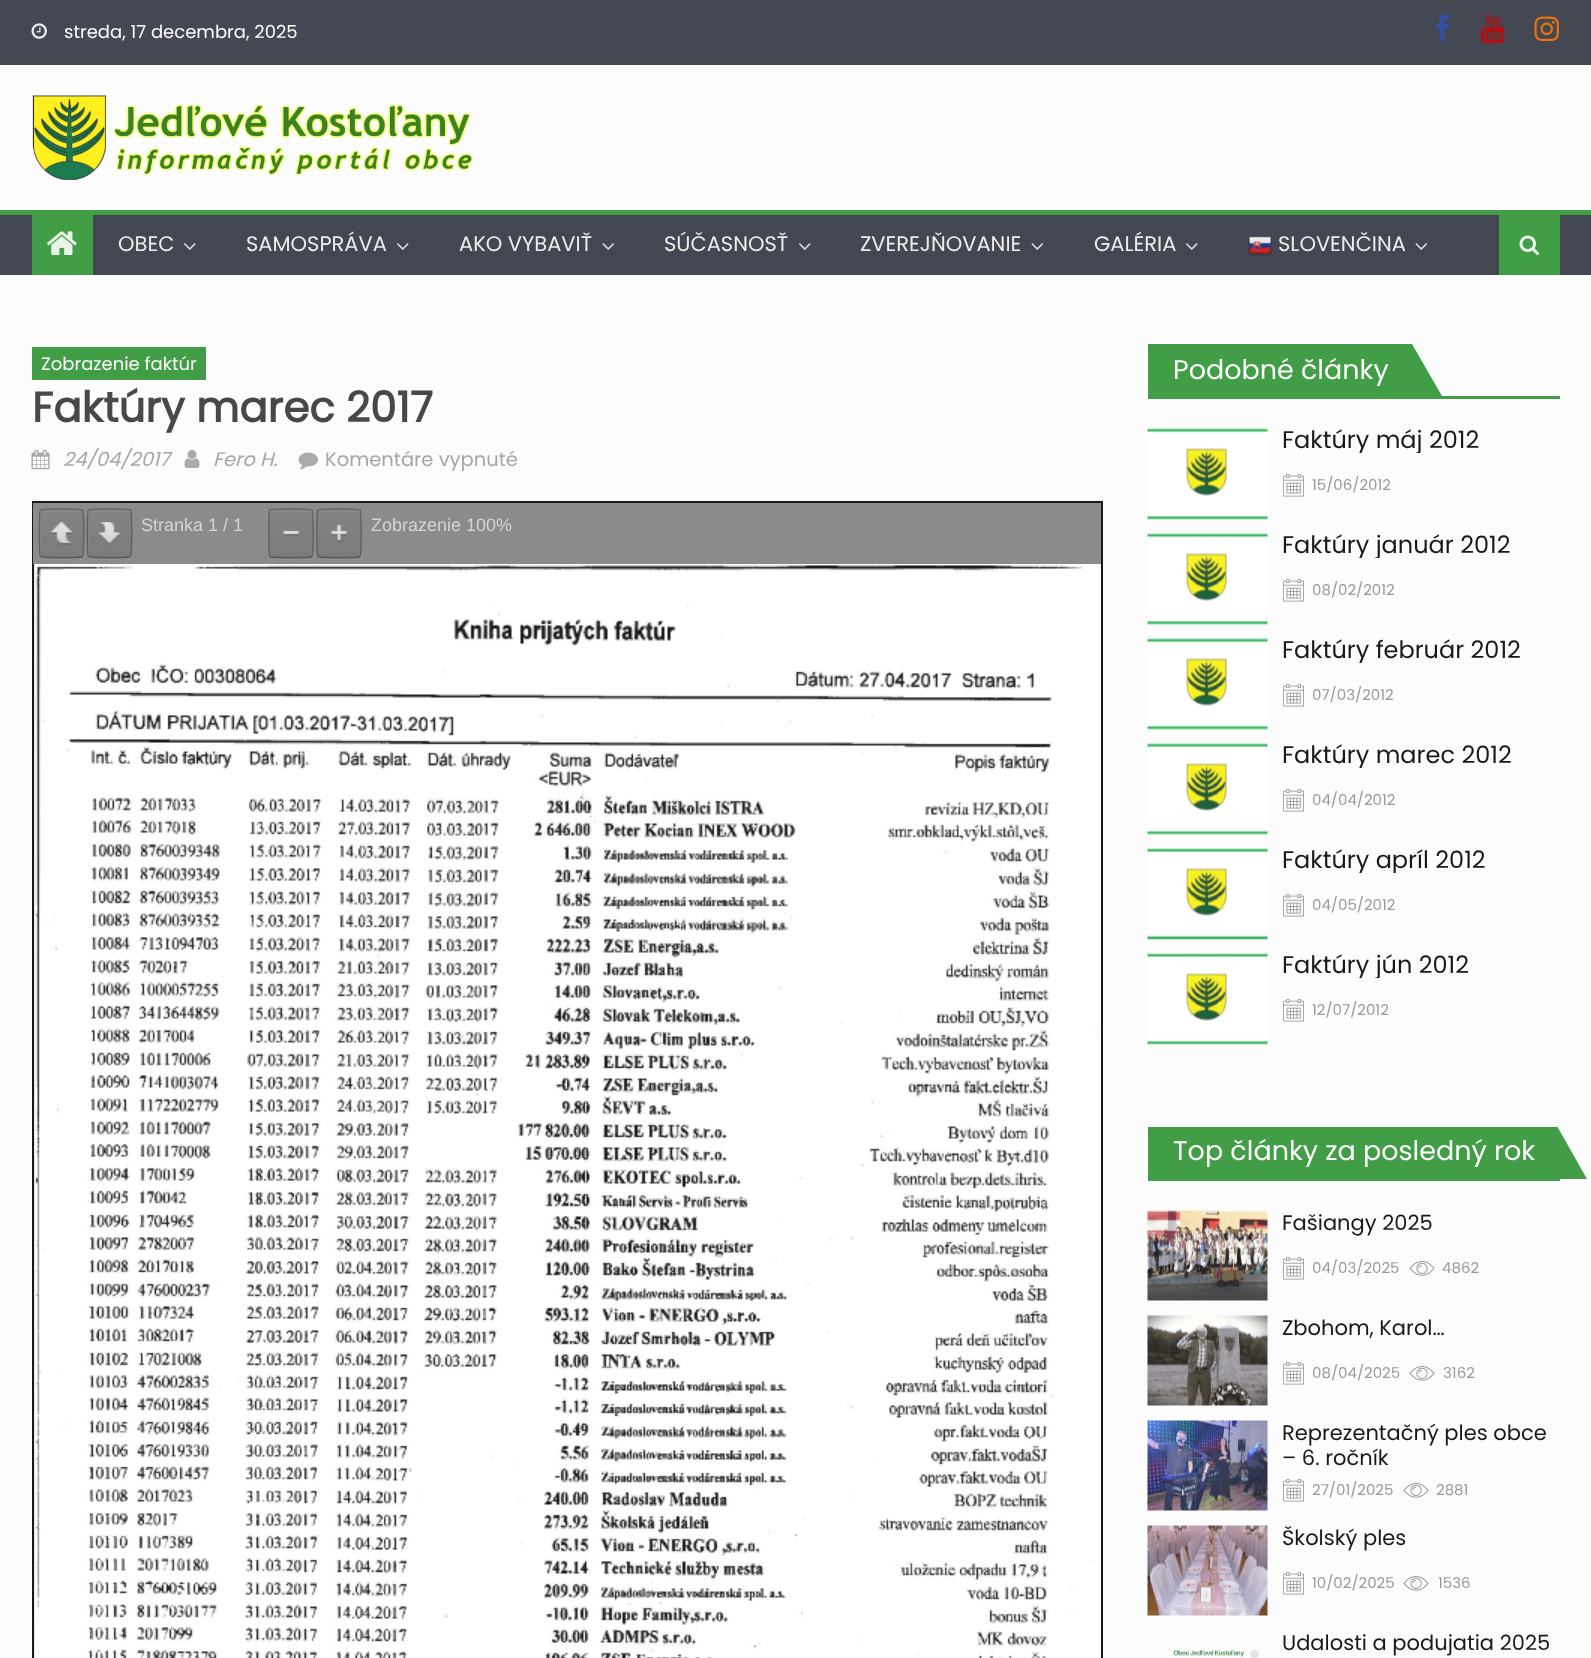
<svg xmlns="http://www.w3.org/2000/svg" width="1591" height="1658">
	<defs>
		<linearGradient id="g1" gradientUnits="userSpaceOnUse" x1="62" y1="510" x2="62" y2="557"><stop offset="0" stop-color="#FCFCFC" stop-opacity="0.05" /><stop offset="1" stop-color="#FCFCFC" stop-opacity="0" /></linearGradient>
		<linearGradient id="g2" gradientUnits="userSpaceOnUse" x1="110" y1="510" x2="110" y2="557"><stop offset="0" stop-color="#FCFCFC" stop-opacity="0.05" /><stop offset="1" stop-color="#FCFCFC" stop-opacity="0" /></linearGradient>
		<linearGradient id="g3" gradientUnits="userSpaceOnUse" x1="291" y1="510" x2="291" y2="557"><stop offset="0" stop-color="#FCFCFC" stop-opacity="0.05" /><stop offset="1" stop-color="#FCFCFC" stop-opacity="0" /></linearGradient>
		<linearGradient id="g4" gradientUnits="userSpaceOnUse" x1="339" y1="510" x2="339" y2="557"><stop offset="0" stop-color="#FCFCFC" stop-opacity="0.05" /><stop offset="1" stop-color="#FCFCFC" stop-opacity="0" /></linearGradient>
		<clipPath id="clip1"><rect x="1283" y="429" width="277" height="24" /></clipPath>
		<clipPath id="clip2"><rect x="1283" y="534" width="277" height="24" /></clipPath>
		<clipPath id="clip3"><rect x="1283" y="639" width="277" height="24" /></clipPath>
		<clipPath id="clip4"><rect x="1283" y="744" width="277" height="24" /></clipPath>
		<clipPath id="clip5"><rect x="1283" y="849" width="277" height="24" /></clipPath>
		<clipPath id="clip6"><rect x="1283" y="954" width="277" height="24" /></clipPath>
	</defs>
	<rect width="100%" height="100%" fill="#FCFCFC" />
	<rect x="0" y="0" width="1591" height="65" fill="#444852" />
	<image x="31" y="23" width="16" height="16" href="assets/img1.png" />
	<text x="64" y="38" font-family="Poppins" font-size="18" fill="#FCFCFC">streda, 17 decembra, 2025</text>
	<image x="1435" y="14" width="15" height="28" href="assets/img2.png" />
	<image x="1480" y="14" width="25" height="30" href="assets/img3.png" />
	<image x="1534" y="16" width="25" height="25" href="assets/img4.png" />
	<image x="32" y="95" width="440" height="85" href="assets/img5.png" />
	<rect x="0" y="215" width="1591" height="60" fill="#434752" />
	<rect x="0" y="210" width="1591" height="5" fill="#429E46" />
	<rect x="32" y="215" width="61" height="60" fill="#429E46" />
	<image x="47" y="231" width="30" height="24" href="assets/img6.png" />
	<text x="118" y="251" font-family="Poppins" font-size="21" fill="#ECECEC">OBEC</text>
	<image x="184" y="243" width="12" height="7" href="assets/img7.png" />
	<text x="246" y="251" font-family="Poppins" font-size="21" fill="#ECECEC">SAMOSPRÁVA</text>
	<image x="397" y="243" width="12" height="7" href="assets/img7.png" />
	<text x="459" y="251" font-family="Poppins" font-size="21" fill="#ECECEC">AKO VYBAVIŤ</text>
	<image x="602" y="243" width="12" height="7" href="assets/img8.png" />
	<text x="664" y="251" font-family="Poppins" font-size="21" fill="#ECECEC">SÚČASNOSŤ</text>
	<image x="799" y="243" width="12" height="7" href="assets/img7.png" />
	<text x="860" y="251" font-family="Poppins" font-size="21" fill="#ECECEC">ZVEREJŇOVANIE</text>
	<image x="1031" y="243" width="12" height="7" href="assets/img8.png" />
	<text x="1094" y="251" font-family="Poppins" font-size="21" fill="#ECECEC">GALÉRIA</text>
	<image x="1186" y="243" width="12" height="7" href="assets/img7.png" />
	<image x="1248" y="236" width="24" height="20" href="assets/img9.png" />
	<text x="1278" y="251" font-family="Poppins" font-size="21" fill="#ECECEC">SLOVENČINA</text>
	<image x="1415" y="243" width="12" height="7" href="assets/img8.png" />
	<rect x="1499" y="215" width="61" height="60" fill="#429E46" />
	<image x="1519" y="235" width="20" height="20" href="assets/img10.png" />
	<rect x="32" y="347" width="174" height="33" fill="#429E46" />
	<text x="41" y="370" font-family="Poppins" font-size="18" fill="#FCFCFC">Zobrazenie faktúr</text>
	<text x="32" y="422" font-family="Poppins" font-size="42" font-weight="700" fill="#484848">Faktúry marec 2017</text>
	<image x="31" y="449" width="19" height="21" href="assets/img11.png" />
	<text x="63" y="466" font-family="Poppins" font-size="19.5" font-style="italic" fill="#A6A6A6">24/04/2017</text>
	<image x="184" y="450" width="16" height="18" href="assets/img12.png" />
	<text x="213" y="466" font-family="Poppins" font-size="19.5" font-style="italic" fill="#A6A6A6">Fero H.</text>
	<image x="298" y="452" width="20" height="18" href="assets/img13.png" />
	<text x="325" y="466" font-family="Poppins" font-size="19.5" fill="#A6A6A6">Komentáre vypnuté</text>
	<rect x="34" y="564" width="1" height="1094" fill="#D4D4D4" />
	<rect x="33" y="502" width="1069" height="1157" fill="none" stroke="#191919" stroke-width="2" />
	<rect x="33" y="503" width="1068" height="61" fill="#8B8B8B" />
	<path d="M39 555C39 562 42 560 48 560H74C81 560 84 562 84 555C84 557 83 558 81 558H42C40 558 39 557 39 555Z" fill="#919191" />
	<rect x="41" y="510" width="42" height="47" rx="1.5" fill="#7D7D7D" />
	<rect x="41" y="510" width="42" height="26" fill="url(#g1)" />
	<path d="M42 512H74C77 512 82 511 82 513V557C83 557 83 556 83 556V512C83 511 82 510 82 510H42C42 510 41 511 41 512Z" fill="#FCFCFC" fill-opacity="0.05" />
	<path d="M40.5 510C41.5 508.5 81.5 508.5 82.5 510" fill="none" stroke="#676767" stroke-width="1.5" />
	<path d="M82.5 510C84 511 84 555.5 82.5 556.5" fill="none" stroke="#191919" stroke-opacity="0.38" stroke-width="1.5" />
	<path d="M82.5 556.5C81.5 558 41.5 558 40.5 556.5" fill="none" stroke="#191919" stroke-opacity="0.42" stroke-width="1.5" />
	<path d="M40.5 556.5C39 555.5 39 511 40.5 510" fill="none" stroke="#191919" stroke-opacity="0.38" stroke-width="1.5" />
	<image x="50" y="522" width="23" height="23" href="assets/img14.png" />
	<path d="M87 555C87 562 90 560 96 560H122C129 560 132 562 132 555C132 557 131 558 129 558H90C88 558 87 557 87 555Z" fill="#919191" />
	<rect x="89" y="510" width="42" height="47" rx="1.5" fill="#7D7D7D" />
	<rect x="89" y="510" width="42" height="26" fill="url(#g2)" />
	<path d="M90 512H122C125 512 130 511 130 513V557C131 557 131 556 131 556V512C131 511 130 510 130 510H90C90 510 89 511 89 512Z" fill="#FCFCFC" fill-opacity="0.05" />
	<path d="M88.5 510C89.5 508.5 129.5 508.5 130.5 510" fill="none" stroke="#676767" stroke-width="1.5" />
	<path d="M130.5 510C132 511 132 555.5 130.5 556.5" fill="none" stroke="#191919" stroke-opacity="0.38" stroke-width="1.5" />
	<path d="M130.5 556.5C129.5 558 89.5 558 88.5 556.5" fill="none" stroke="#191919" stroke-opacity="0.42" stroke-width="1.5" />
	<path d="M88.5 556.5C87 555.5 87 511 88.5 510" fill="none" stroke="#191919" stroke-opacity="0.38" stroke-width="1.5" />
	<image x="98" y="522" width="23" height="23" href="assets/img15.png" />
	<text x="141" y="531" font-family="Liberation Sans" font-size="18" fill="#D4D4D4">Stranka 1 / 1</text>
	<path d="M269 557C269 562 276 560 278 560H304C307 560 314 562 314 557V542C314 538 315 514 313 511L314 548C314 562 313 558 298 558H278C276 558 271 559 269 557Z" fill="#919191" />
	<rect x="270" y="510" width="42" height="47" rx="1.5" fill="#7D7D7D" />
	<rect x="270" y="510" width="42" height="26" fill="url(#g3)" />
	<path d="M272 512H310C311 512 312 512 312 513C312 508 309 510 304 510H278C273 510 270 508 270 513C270 512 271 512 272 512Z" fill="#898989" />
	<path d="M270 510C271 508.5 311 508.5 312 510" fill="none" stroke="#666666" stroke-width="1.5" />
	<path d="M312 510C313.5 511 313.5 555.5 312 556.5" fill="none" stroke="#191919" stroke-opacity="0.38" stroke-width="1.5" />
	<path d="M312 556.5C311 558 271 558 270 556.5" fill="none" stroke="#191919" stroke-opacity="0.42" stroke-width="1.5" />
	<path d="M270 556.5C268.5 555.5 268.5 511 270 510" fill="none" stroke="#191919" stroke-opacity="0.38" stroke-width="1.5" />
	<image x="282" y="530" width="18" height="6" href="assets/img16.png" />
	<path d="M317 557C317 562 324 560 326 560H352C355 560 362 562 362 557V542C362 538 363 514 361 511L362 548C362 562 361 558 346 558H326C324 558 319 559 317 557Z" fill="#919191" />
	<rect x="318" y="510" width="42" height="47" rx="1.5" fill="#7D7D7D" />
	<rect x="318" y="510" width="42" height="26" fill="url(#g4)" />
	<path d="M320 512H358C359 512 360 512 360 513C360 508 357 510 352 510H326C321 510 318 508 318 513C318 512 319 512 320 512Z" fill="#898989" />
	<path d="M318 510C319 508.5 359 508.5 360 510" fill="none" stroke="#666666" stroke-width="1.5" />
	<path d="M360 510C361.5 511 361.5 555.5 360 556.5" fill="none" stroke="#191919" stroke-opacity="0.38" stroke-width="1.5" />
	<path d="M360 556.5C359 558 319 558 318 556.5" fill="none" stroke="#191919" stroke-opacity="0.42" stroke-width="1.5" />
	<path d="M318 556.5C316.5 555.5 316.5 511 318 510" fill="none" stroke="#191919" stroke-opacity="0.38" stroke-width="1.5" />
	<image x="330" y="524" width="18" height="18" href="assets/img17.png" />
	<text x="371" y="531" font-family="Liberation Sans" font-size="18" fill="#D4D4D4">Zobrazenie 100%</text>
	<image x="34" y="564" width="1064" height="1094" href="assets/img18.png" />
	<rect x="1148" y="396" width="412" height="3" fill="#429E46" />
	<rect x="1148" y="344" width="3" height="55" fill="#429E46" />
	<rect x="1151" y="344" width="261" height="52" fill="#429E46" />
	<text x="1173" y="379" font-family="Poppins" font-size="27" fill="#FCFCFC">Podobné články</text>
	<path d="M1442 396H1412V344Z" fill="#429E46" />
	<image x="1147" y="428" width="121" height="92" href="assets/img19.png" />
	<g clip-path="url(#clip1)">
		<text x="1282" y="448" font-family="Poppins" font-size="24" fill="#191919">Faktúry máj 2012</text>
	</g>
	<image x="1283" y="474" width="21" height="23" href="assets/img20.png" />
	<text x="1312" y="490" font-family="Poppins" font-size="15" fill="#9A9A9A">15/06/2012</text>
	<image x="1147" y="533" width="121" height="92" href="assets/img21.png" />
	<g clip-path="url(#clip2)">
		<text x="1282" y="553" font-family="Poppins" font-size="24" fill="#191919">Faktúry január 2012</text>
	</g>
	<image x="1283" y="579" width="21" height="23" href="assets/img20.png" />
	<text x="1312" y="595" font-family="Poppins" font-size="15" fill="#9A9A9A">08/02/2012</text>
	<image x="1147" y="638" width="121" height="92" href="assets/img22.png" />
	<g clip-path="url(#clip3)">
		<text x="1282" y="658" font-family="Poppins" font-size="24" fill="#191919">Faktúry február 2012</text>
	</g>
	<image x="1283" y="684" width="21" height="23" href="assets/img20.png" />
	<text x="1312" y="700" font-family="Poppins" font-size="15" fill="#9A9A9A">07/03/2012</text>
	<image x="1147" y="743" width="121" height="92" href="assets/img21.png" />
	<g clip-path="url(#clip4)">
		<text x="1282" y="763" font-family="Poppins" font-size="24" fill="#191919">Faktúry marec 2012</text>
	</g>
	<image x="1283" y="789" width="21" height="23" href="assets/img20.png" />
	<text x="1312" y="805" font-family="Poppins" font-size="15" fill="#9A9A9A">04/04/2012</text>
	<image x="1147" y="848" width="121" height="92" href="assets/img23.png" />
	<g clip-path="url(#clip5)">
		<text x="1282" y="868" font-family="Poppins" font-size="24" fill="#191919">Faktúry apríl 2012</text>
	</g>
	<image x="1283" y="894" width="21" height="23" href="assets/img20.png" />
	<text x="1312" y="910" font-family="Poppins" font-size="15" fill="#9A9A9A">04/05/2012</text>
	<image x="1147" y="953" width="121" height="92" href="assets/img24.png" />
	<g clip-path="url(#clip6)">
		<text x="1282" y="973" font-family="Poppins" font-size="24" fill="#191919">Faktúry jún 2012</text>
	</g>
	<image x="1283" y="999" width="21" height="23" href="assets/img20.png" />
	<text x="1312" y="1015" font-family="Poppins" font-size="15" fill="#9A9A9A">12/07/2012</text>
	<rect x="1148" y="1178" width="412" height="3" fill="#429E46" />
	<rect x="1148" y="1127" width="3" height="54" fill="#429E46" />
	<rect x="1151" y="1127" width="406" height="51" fill="#429E46" />
	<text x="1173" y="1160" font-family="Poppins" font-size="27" fill="#FCFCFC">Top články za posledný rok</text>
	<path d="M1587 1179H1557V1126Z" fill="#429E46" />
	<image x="1147" y="1210" width="121" height="91" href="assets/img25.png" />
	<text x="1282" y="1230" font-family="Poppins" font-size="21" fill="#191919">Fašiangy 2025</text>
	<image x="1283" y="1257" width="21" height="23" href="assets/img20.png" />
	<text x="1312" y="1273" font-family="Poppins" font-size="15" fill="#9A9A9A">04/03/2025</text>
	<image x="1409" y="1261" width="26" height="15" href="assets/img26.png" />
	<text x="1442" y="1273" font-family="Poppins" font-size="15" fill="#9A9A9A">4862</text>
	<image x="1147" y="1315" width="121" height="91" href="assets/img27.png" />
	<text x="1282" y="1335" font-family="Poppins" font-size="21" fill="#191919">Zbohom, Karol…</text>
	<image x="1283" y="1362" width="21" height="23" href="assets/img20.png" />
	<text x="1312" y="1378" font-family="Poppins" font-size="15" fill="#9A9A9A">08/04/2025</text>
	<image x="1409" y="1366" width="26" height="15" href="assets/img26.png" />
	<text x="1443" y="1378" font-family="Poppins" font-size="15" fill="#9A9A9A">3162</text>
	<image x="1147" y="1420" width="121" height="91" href="assets/img28.png" />
	<g font-family="Poppins" font-size="21" fill="#191919">
		<text x="1282" y="1440">Reprezentačný ples obce</text>
		<text x="1282" y="1465">– 6. ročník</text>
	</g>
	<image x="1283" y="1479" width="21" height="23" href="assets/img20.png" />
	<text x="1312" y="1495" font-family="Poppins" font-size="15" fill="#9A9A9A">27/01/2025</text>
	<image x="1403" y="1483" width="26" height="15" href="assets/img26.png" />
	<text x="1436" y="1495" font-family="Poppins" font-size="15" fill="#9A9A9A">2881</text>
	<image x="1147" y="1525" width="121" height="91" href="assets/img29.png" />
	<text x="1282" y="1545" font-family="Poppins" font-size="21" fill="#191919">Školský ples</text>
	<image x="1283" y="1572" width="21" height="23" href="assets/img20.png" />
	<text x="1312" y="1588" font-family="Poppins" font-size="15" fill="#9A9A9A">10/02/2025</text>
	<image x="1403" y="1576" width="26" height="15" href="assets/img26.png" />
	<text x="1438" y="1588" font-family="Poppins" font-size="15" fill="#9A9A9A">1536</text>
	<image x="1173" y="1649" width="86" height="9" href="assets/img30.png" />
	<text x="1282" y="1650" font-family="Poppins" font-size="21" fill="#191919">Udalosti a podujatia 2025</text>
</svg>
